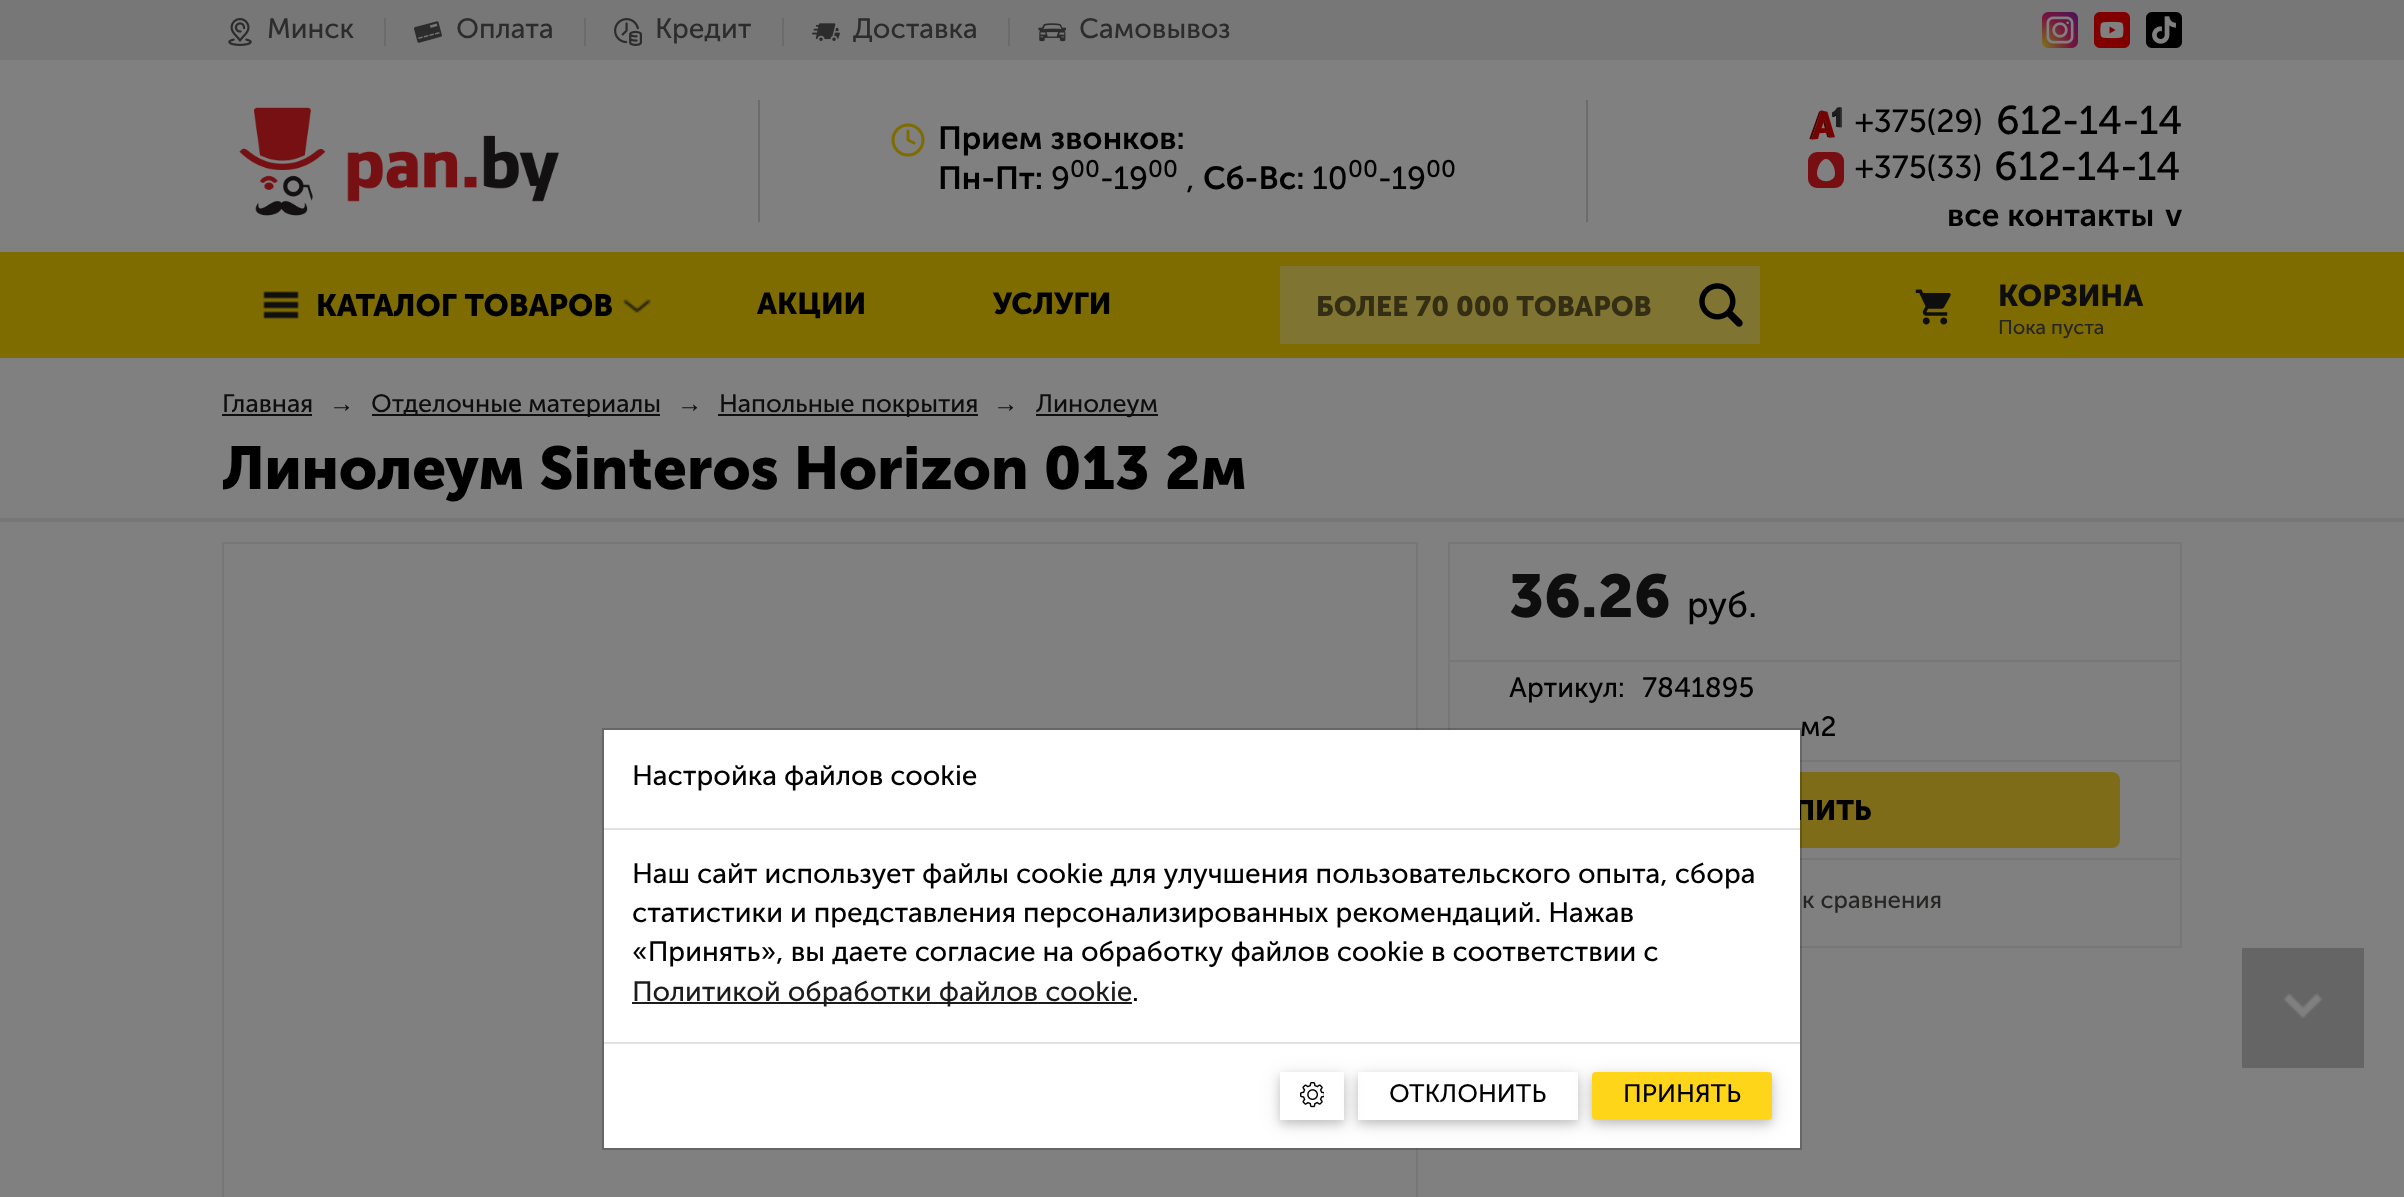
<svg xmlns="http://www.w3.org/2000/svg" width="2404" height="1197">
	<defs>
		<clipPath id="clip1"><path d="M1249 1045H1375V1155H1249ZM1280 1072H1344V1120H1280Z" clip-rule="evenodd" /></clipPath>
		<clipPath id="clip2"><path d="M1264 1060H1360V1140H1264ZM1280 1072H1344V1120H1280Z" clip-rule="evenodd" /></clipPath>
		<clipPath id="clip3"><path d="M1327 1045H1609V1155H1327ZM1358 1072H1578V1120H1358Z" clip-rule="evenodd" /></clipPath>
		<clipPath id="clip4"><path d="M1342 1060H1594V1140H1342ZM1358 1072H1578V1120H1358Z" clip-rule="evenodd" /></clipPath>
	</defs>
	<rect width="100%" height="100%" fill="#808080" />
	<rect x="0" y="0" width="2404" height="60" fill="#777777" />
	<image x="228" y="18" width="24" height="28" href="assets/img1.png" />
	<text x="267" y="38" font-family="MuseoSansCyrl" font-size="28" fill="#2C2C2C">Минск</text>
	<rect x="384" y="18" width="2" height="28" fill="#6B6B6B" />
	<image x="414" y="21" width="28" height="22" href="assets/img2.png" />
	<text x="456" y="38" font-family="MuseoSansCyrl" font-size="28" fill="#2C2C2C">Оплата</text>
	<rect x="584" y="18" width="2" height="28" fill="#6B6B6B" />
	<image x="614" y="18" width="28" height="28" href="assets/img3.png" />
	<text x="655" y="38" font-family="MuseoSansCyrl" font-size="28" fill="#2C2C2C">Кредит</text>
	<rect x="782" y="18" width="2" height="28" fill="#6B6B6B" />
	<image x="812" y="23" width="28" height="18" href="assets/img4.png" />
	<text x="853" y="38" font-family="MuseoSansCyrl" font-size="28" fill="#2C2C2C">Доставка</text>
	<rect x="1008" y="18" width="2" height="28" fill="#6B6B6B" />
	<image x="1038" y="23" width="28" height="19" href="assets/img5.png" />
	<text x="1079" y="38" font-family="MuseoSansCyrl" font-size="28" fill="#2C2C2C">Самовывоз</text>
	<image x="2042" y="12" width="36" height="36" href="assets/img6.png" />
	<image x="2094" y="12" width="36" height="36" href="assets/img7.png" />
	<image x="2146" y="12" width="36" height="36" href="assets/img8.png" />
	<image x="239" y="107" width="320" height="109" href="assets/img9.png" />
	<rect x="1586" y="100" width="2" height="122" fill="#6B6B6B" />
	<rect x="758" y="100" width="2" height="122" fill="#6B6B6B" />
	<circle cx="908" cy="140" r="15" fill="none" stroke="#7F6C00" stroke-width="3" />
	<path d="M908 131V140L914 143" fill="none" stroke="#7F6C00" stroke-width="3" stroke-linecap="round" stroke-linejoin="round" />
	<g font-family="'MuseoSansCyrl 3'" font-size="32" fill="#000000">
		<text x="938" y="149">Прием звонков:</text>
		<text x="938" y="189">Пн-Пт:</text>
	</g>
	<text x="1051" y="189" font-family="MuseoSansCyrl" font-size="32" fill="#000000">9</text>
	<text x="1070" y="177" font-family="MuseoSansCyrl" font-size="24" fill="#000000">00</text>
	<text x="1100" y="189" font-family="MuseoSansCyrl" font-size="32" fill="#000000">-19</text>
	<text x="1148" y="177" font-family="MuseoSansCyrl" font-size="24" fill="#000000">00</text>
	<text x="1186" y="189" font-family="MuseoSansCyrl" font-size="32" fill="#000000">,</text>
	<text x="1203" y="189" font-family="'MuseoSansCyrl 3'" font-size="32" fill="#000000">Сб-Вс:</text>
	<text x="1312" y="189" font-family="MuseoSansCyrl" font-size="32" fill="#000000">10</text>
	<text x="1348" y="177" font-family="MuseoSansCyrl" font-size="24" fill="#000000">00</text>
	<text x="1378" y="189" font-family="MuseoSansCyrl" font-size="32" fill="#000000">-19</text>
	<text x="1426" y="177" font-family="MuseoSansCyrl" font-size="24" fill="#000000">00</text>
	<image x="1809" y="107" width="33" height="33" href="assets/img10.png" />
	<text x="1855" y="132" font-family="MuseoSansCyrl" font-size="32" fill="#000000">+375(29)</text>
	<text x="1996" y="134" font-family="MuseoSansCyrl" font-size="40" fill="#000000">612-14-14</text>
	<rect x="1808" y="152" width="36" height="36" rx="9" fill="#770F12" />
	<path d="M1835 173.5C1835 184 1817 183.5 1817 173.5C1817 165 1825 152 1832 163.5C1834 166.5 1835 170 1835 173.5Z" fill="#808080" />
	<text x="1855" y="178" font-family="MuseoSansCyrl" font-size="32" fill="#000000">+375(33)</text>
	<text x="1994" y="180" font-family="MuseoSansCyrl" font-size="40" fill="#000000">612-14-14</text>
	<g font-family="'MuseoSansCyrl 3'" font-size="32" fill="#000000">
		<text x="1947" y="226">все контакты</text>
		<text x="2165" y="226">v</text>
	</g>
	<rect x="0" y="252" width="2404" height="106" fill="#7F6C00" />
	<image x="263" y="291" width="388" height="28" href="assets/img11.png" />
	<text x="316" y="316" font-family="'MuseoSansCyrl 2'" font-size="30.75" fill="#000000">КАТАЛОГ ТОВАРОВ</text>
	<g font-family="'MuseoSansCyrl 2'" font-size="30" fill="#000000">
		<text x="757" y="314">АКЦИИ</text>
		<text x="993" y="314">УСЛУГИ</text>
	</g>
	<rect x="1280" y="266" width="480" height="78" fill="#807432" />
	<text x="1316" y="316" font-family="'MuseoSansCyrl 2'" font-size="28" fill="#332E14">БОЛЕЕ 70 000 ТОВАРОВ</text>
	<image x="1699" y="283" width="44" height="44" href="assets/img12.png" />
	<image x="1915" y="289" width="36" height="36" href="assets/img13.png" />
	<text x="1998" y="306" font-family="'MuseoSansCyrl 2'" font-size="30" fill="#0E0E0E">КОРЗИНА</text>
	<text x="1998" y="334" font-family="MuseoSansCyrl" font-size="20" fill="#252524">Пока пуста</text>
	<text x="222" y="412" font-family="MuseoSansCyrl" font-size="25.25" fill="#0E0E0E">Главная</text>
	<rect x="222" y="414" width="90" height="2" fill="#0E0E0E" />
	<text x="329" y="412" font-family="Liberation Sans" font-size="25.25" fill="#0E0E0E">→</text>
	<rect x="372" y="414" width="288" height="2" fill="#0E0E0E" />
	<text x="371" y="412" font-family="MuseoSansCyrl" font-size="25.25" fill="#0E0E0E">Отделочные материалы</text>
	<text x="677" y="412" font-family="Liberation Sans" font-size="25.25" fill="#0E0E0E">→</text>
	<rect x="718" y="414" width="260" height="2" fill="#0E0E0E" />
	<text x="719" y="412" font-family="MuseoSansCyrl" font-size="25.25" fill="#0E0E0E">Напольные покрытия</text>
	<text x="993" y="412" font-family="Liberation Sans" font-size="25.25" fill="#0E0E0E">→</text>
	<rect x="1036" y="414" width="122" height="2" fill="#0E0E0E" />
	<text x="1036" y="412" font-family="MuseoSansCyrl" font-size="25.25" fill="#0E0E0E">Линолеум</text>
	<rect x="0" y="518" width="2404" height="4" fill="#777777" />
	<text x="222" y="489" font-family="'MuseoSansCyrl 2'" font-size="60" fill="#000000">Линолеум Sinteros Horizon 013 2м</text>
	<rect x="223" y="543" width="1194" height="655" fill="none" stroke="#777777" stroke-width="2" />
	<rect x="1449" y="543" width="732" height="118" fill="none" stroke="#777777" stroke-width="2" />
	<text x="1509" y="617" font-family="'MuseoSansCyrl 2'" font-size="60" fill="#0E0E0E">36.26</text>
	<text x="1687" y="617" font-family="MuseoSansCyrl" font-size="36" fill="#000000">руб.</text>
	<rect x="2180" y="662" width="2" height="286" fill="#777777" />
	<rect x="1800" y="760" width="382" height="2" fill="#777777" />
	<rect x="1448" y="662" width="2" height="68" fill="#777777" />
	<g font-family="MuseoSansCyrl" font-size="28" fill="#000000">
		<text x="1509" y="697">Артикул:</text>
		<text x="1642" y="697">7841895</text>
		<text x="1800" y="736">м2</text>
	</g>
	<rect x="1800" y="858" width="382" height="2" fill="#777777" />
	<rect x="1510" y="772" width="610" height="76" rx="8" fill="#7E6C19" />
	<text x="1794" y="820" font-family="'MuseoSansCyrl 2'" font-size="28" fill="#000000">ПИТЬ</text>
	<rect x="1800" y="946" width="382" height="2" fill="#777777" />
	<text x="1802" y="908" font-family="MuseoSansCyrl" font-size="24" fill="#252524">к сравнения</text>
	<rect x="604" y="730" width="1196" height="418" fill="#FFFFFF" />
	<rect x="603" y="729" width="1198" height="420" fill="none" stroke="#000000" stroke-opacity="0.2" stroke-width="2" />
	<rect x="604" y="828" width="1196" height="2" fill="#DEE2E6" />
	<g font-family="MuseoSansCyrl" font-size="28" fill="#000000">
		<text x="632" y="785">Настройка файлов cookie</text>
		<text x="632" y="883">Наш сайт использует файлы cookie для улучшения пользовательского опыта, сбора</text>
		<text x="632" y="922">статистики и представления персонализированных рекомендаций. Нажав</text>
		<text x="632" y="961">«Принять», вы даете согласие на обработку файлов cookie в соответствии с</text>
	</g>
	<rect x="632" y="1002" width="500" height="2" fill="#1C1C1C" />
	<text x="632" y="1001" font-family="MuseoSansCyrl" font-size="28" fill="#1C1C1C">Политикой обработки файлов cookie</text>
	<text x="1132" y="1001" font-family="MuseoSansCyrl" font-size="28" fill="#000000">.</text>
	<rect x="604" y="1042" width="1196" height="2" fill="#DEE2E6" />
	<g clip-path="url(#clip1)">
		<rect x="1280" y="1076" width="64" height="48" fill="#000000" fill-opacity="0.12" filter="blur(10px)" />
	</g>
	<g clip-path="url(#clip2)">
		<rect x="1280" y="1076" width="64" height="48" fill="#000000" fill-opacity="0.16" filter="blur(5px)" />
	</g>
	<image x="1300" y="1082" width="24" height="26" href="assets/img14.png" />
	<g clip-path="url(#clip3)">
		<rect x="1358" y="1076" width="220" height="48" fill="#000000" fill-opacity="0.12" filter="blur(10px)" />
	</g>
	<g clip-path="url(#clip4)">
		<rect x="1358" y="1076" width="220" height="48" fill="#000000" fill-opacity="0.16" filter="blur(5px)" />
	</g>
	<text x="1389" y="1102" font-family="MuseoSansCyrl" font-size="25.25" fill="#000000">ОТКЛОНИТЬ</text>
	<rect x="1592" y="1076" width="180" height="48" rx="4" fill="#000000" fill-opacity="0.12" filter="blur(10px)" />
	<rect x="1592" y="1076" width="180" height="48" rx="4" fill="#000000" fill-opacity="0.16" filter="blur(5px)" />
	<rect x="1592" y="1072" width="180" height="48" rx="4" fill="#FFD51A" />
	<text x="1623" y="1102" font-family="MuseoSansCyrl" font-size="25.25" fill="#000000">ПРИНЯТЬ</text>
	<rect x="2242" y="948" width="122" height="120" fill="#656565" />
	<image x="2283" y="993" width="40" height="25" href="assets/img15.png" />
</svg>
